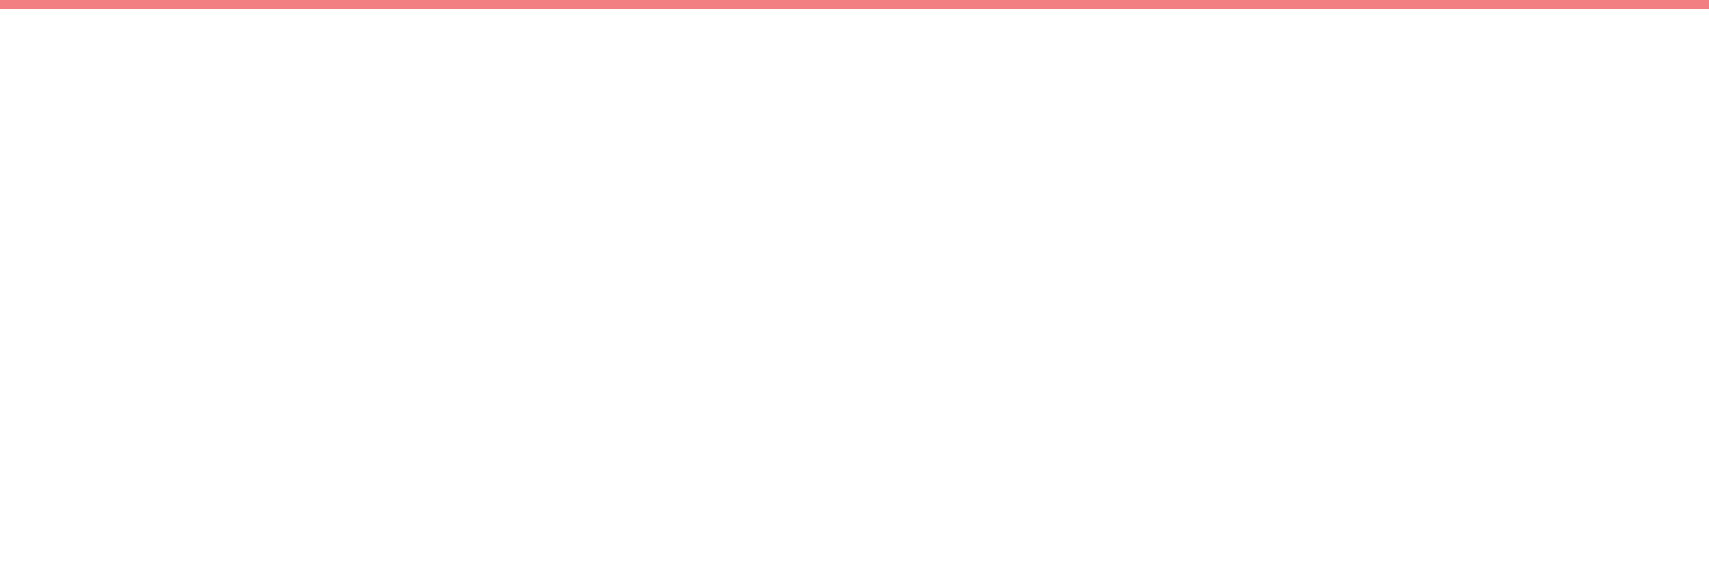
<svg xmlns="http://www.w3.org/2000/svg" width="1709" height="579">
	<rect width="100%" height="100%" fill="#FFFFFF" />
	<rect x="0" y="0" width="1709" height="9" fill="#F27F81" />
	<image x="0" y="74" width="1709" height="505" href="assets/img1.png" />
	<image x="0" y="9" width="1709" height="85" href="assets/img2.png" />
	<image x="829" y="10" width="53" height="53" href="assets/img3.png" />
	<image x="555" y="145" width="611" height="420" href="assets/img4.png" />
</svg>
